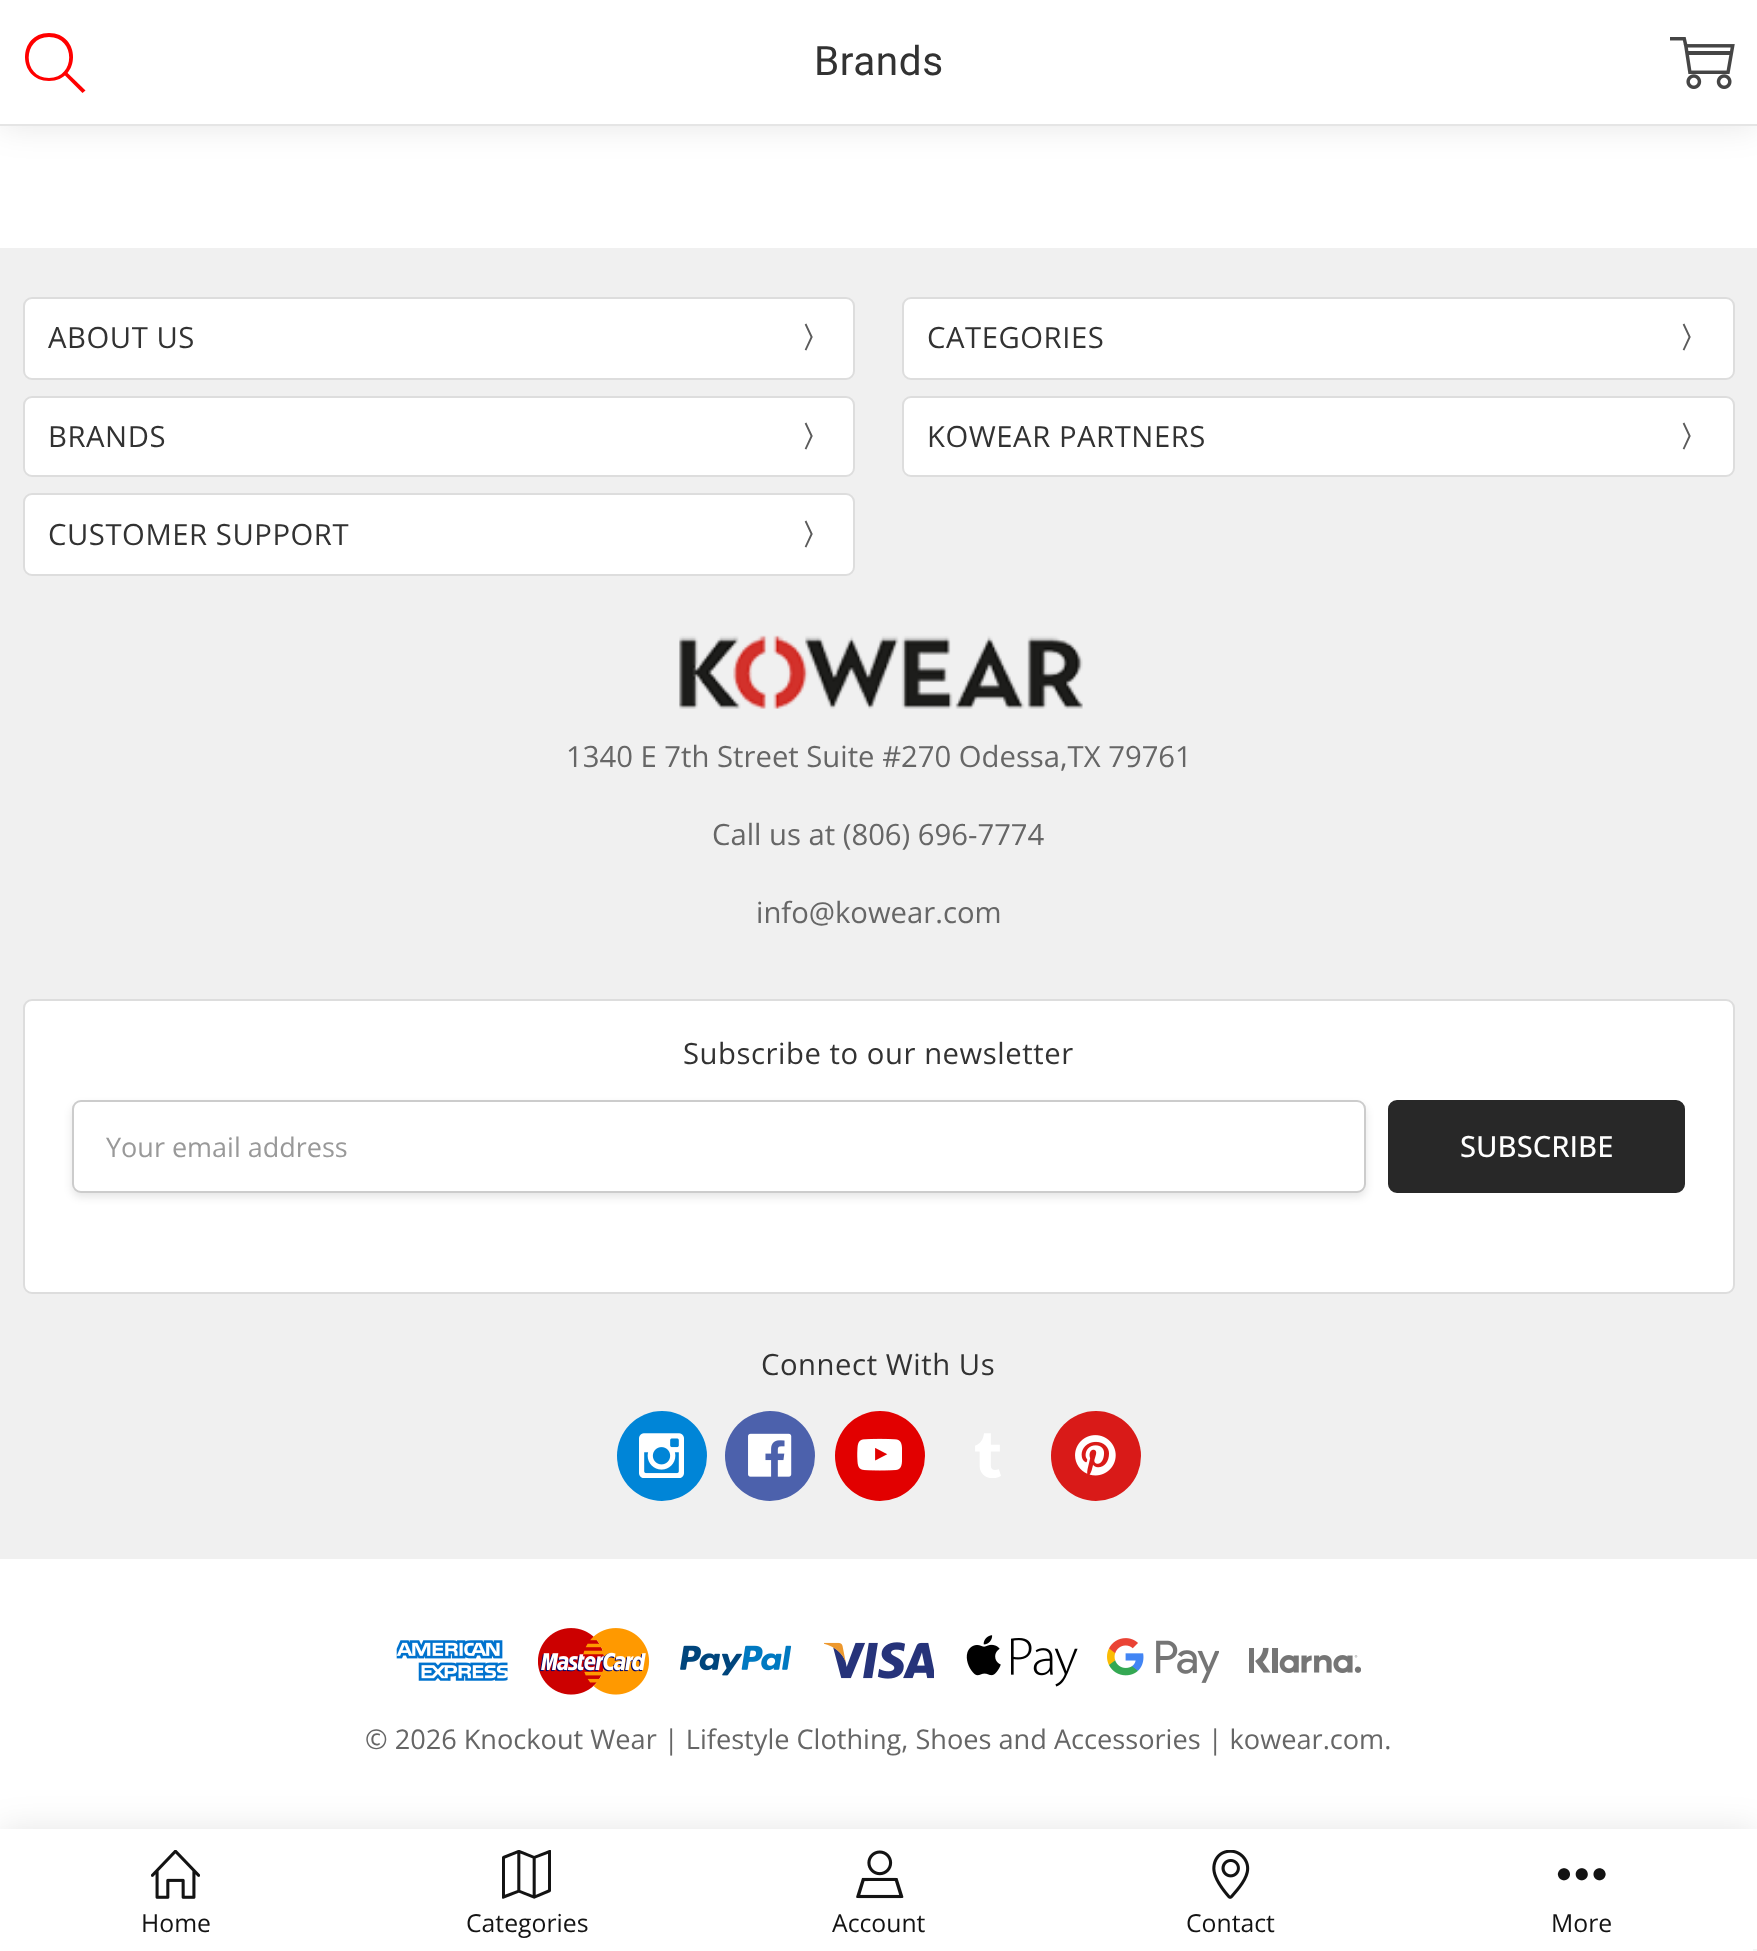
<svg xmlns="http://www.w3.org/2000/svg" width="1757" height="1951">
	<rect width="100%" height="100%" fill="#FFFFFF" />
	<rect x="0" y="0" width="1757" height="126" fill="#000000" fill-opacity="0.1" filter="blur(17px)" />
	<rect x="0" y="0" width="1757" height="124" fill="#FFFFFF" />
	<rect x="0" y="124" width="1757" height="2" fill="#E5E5E5" />
	<path d="M49 81C17 81 17 33 49 33C81 33 81 81 49 81ZM49 37C22 37 22 78 49 78C76 78 76 37 49 37Z" fill="#FF0000" />
	<path d="M65.5 71L85.5 90.5L82.5 93L63 73.5Z" fill="#FF0000" />
	<image x="1670" y="37" width="65" height="52" href="assets/img1.png" />
	<text x="814" y="75" font-family="Roboto" font-size="40.5" letter-spacing="0.55" fill="#323232">Brands</text>
	<rect x="0" y="248" width="1757" height="1311" fill="#F0F0F0" />
	<rect x="24" y="298" width="830" height="81" rx="8" fill="#FFFFFF" stroke="#DDDDDD" stroke-width="2" />
	<text x="48" y="348" font-family="Open Sans" font-size="29.25" letter-spacing="0.55" fill="#323232">ABOUT US</text>
	<text x="801" y="348" font-family="WenQuanYi Zen Hei" font-size="29.25" font-weight="700" letter-spacing="0.55" fill="#5B5B5B">〉</text>
	<rect x="903" y="298" width="831" height="81" rx="8" fill="#FFFFFF" stroke="#DDDDDD" stroke-width="2" />
	<text x="927" y="348" font-family="Open Sans" font-size="29.25" letter-spacing="0.55" fill="#323232">CATEGORIES</text>
	<text x="1679" y="348" font-family="WenQuanYi Zen Hei" font-size="29.25" font-weight="700" letter-spacing="0.55" fill="#5B5B5B">〉</text>
	<rect x="24" y="397" width="830" height="79" rx="8" fill="#FFFFFF" stroke="#DDDDDD" stroke-width="2" />
	<text x="48" y="447" font-family="Open Sans" font-size="29.25" letter-spacing="0.55" fill="#323232">BRANDS</text>
	<text x="801" y="447" font-family="WenQuanYi Zen Hei" font-size="29.25" font-weight="700" letter-spacing="0.55" fill="#5B5B5B">〉</text>
	<rect x="903" y="397" width="831" height="79" rx="8" fill="#FFFFFF" stroke="#DDDDDD" stroke-width="2" />
	<text x="927" y="447" font-family="Open Sans" font-size="29.25" letter-spacing="0.55" fill="#323232">KOWEAR PARTNERS</text>
	<text x="1679" y="447" font-family="WenQuanYi Zen Hei" font-size="29.25" font-weight="700" letter-spacing="0.55" fill="#5B5B5B">〉</text>
	<rect x="24" y="494" width="830" height="81" rx="8" fill="#FFFFFF" stroke="#DDDDDD" stroke-width="2" />
	<text x="48" y="545" font-family="Open Sans" font-size="29.25" letter-spacing="0.55" fill="#323232">CUSTOMER SUPPORT</text>
	<text x="801" y="545" font-family="WenQuanYi Zen Hei" font-size="29.25" font-weight="700" letter-spacing="0.55" fill="#5B5B5B">〉</text>
	<image x="679" y="635" width="404" height="74" href="assets/img2.png" />
	<g font-family="Open Sans" font-size="29.25" fill="#666666">
		<text x="566" y="767">1340 E 7th Street Suite #270 Odessa,TX 79761</text>
		<text x="712" y="845">Call us at (806) 696-7774</text>
		<text x="756" y="923">info@kowear.com</text>
	</g>
	<rect x="24" y="1000" width="1710" height="293" rx="8" fill="#FFFFFF" stroke="#DDDDDD" stroke-width="2" />
	<text x="683" y="1064" font-family="Open Sans" font-size="29.25" letter-spacing="0.55" fill="#323232">Subscribe to our newsletter</text>
	<rect x="72" y="1105" width="1294" height="92" rx="9" fill="#000000" fill-opacity="0.1" filter="blur(4.5px)" />
	<rect x="73" y="1101" width="1292" height="91" rx="8" fill="#FFFFFF" stroke="#CCCCCC" stroke-width="2" />
	<text x="106" y="1157" font-family="Open Sans" font-size="27" fill="#999999">Your email address</text>
	<rect x="1389" y="1101" width="295" height="91" rx="8" fill="#282828" stroke="#282828" stroke-width="2" />
	<text x="1460" y="1157" font-family="Open Sans" font-size="29.25" font-weight="500" fill="#FFFFFF">SUBSCRIBE</text>
	<text x="761" y="1375" font-family="Open Sans" font-size="29.25" letter-spacing="0.55" fill="#323232">Connect With Us</text>
	<circle cx="662" cy="1456" r="45" fill="#0085D7" />
	<image x="639" y="1433" width="45" height="45" href="assets/img3.png" />
	<circle cx="770" cy="1456" r="45" fill="#4C61AC" />
	<image x="748" y="1433" width="44" height="44" href="assets/img4.png" />
	<circle cx="880" cy="1456" r="45" fill="#E20000" />
	<image x="857" y="1438" width="45" height="33" href="assets/img5.png" />
	<image x="975" y="1433" width="26" height="45" href="assets/img6.png" />
	<circle cx="1096" cy="1456" r="45" fill="#D91A18" />
	<image x="1075" y="1435" width="41" height="41" href="assets/img7.png" />
	<image x="396" y="1640" width="112" height="41" href="assets/img8.png" />
	<image x="538" y="1628" width="112" height="67" href="assets/img9.png" />
	<image x="680" y="1645" width="112" height="31" href="assets/img10.png" />
	<image x="824" y="1642" width="110" height="37" href="assets/img11.png" />
	<image x="966" y="1635" width="112" height="52" href="assets/img12.png" />
	<image x="1107" y="1638" width="112" height="45" href="assets/img13.png" />
	<image x="1249" y="1647" width="112" height="26" href="assets/img14.png" />
	<text x="365" y="1749" font-family="Open Sans" font-size="27.15" fill="#666666">© 2026 Knockout Wear | Lifestyle Clothing, Shoes and Accessories | kowear.com.</text>
	<rect x="0" y="1829" width="1757" height="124" fill="#000000" fill-opacity="0.1" filter="blur(17px)" />
	<rect x="0" y="1829" width="1757" height="122" fill="#FFFFFF" />
	<image x="151" y="1850" width="49" height="49" href="assets/img15.png" />
	<text x="141" y="1932" font-family="Open Sans" font-size="24.75" fill="#131313">Home</text>
	<image x="502" y="1850" width="49" height="49" href="assets/img16.png" />
	<text x="466" y="1932" font-family="Open Sans" font-size="24.75" fill="#131313">Categories</text>
	<image x="856" y="1850" width="48" height="49" href="assets/img17.png" />
	<text x="832" y="1932" font-family="Open Sans" font-size="24.75" fill="#131313">Account</text>
	<image x="1212" y="1850" width="38" height="49" href="assets/img18.png" />
	<text x="1186" y="1932" font-family="Open Sans" font-size="24.75" fill="#131313">Contact</text>
	<image x="1557" y="1868" width="49" height="13" href="assets/img19.png" />
	<text x="1551" y="1932" font-family="Open Sans" font-size="24.75" fill="#131313">More</text>
	<rect x="1753" y="1949" width="4" height="2" fill="#F5F5F5" />
</svg>
